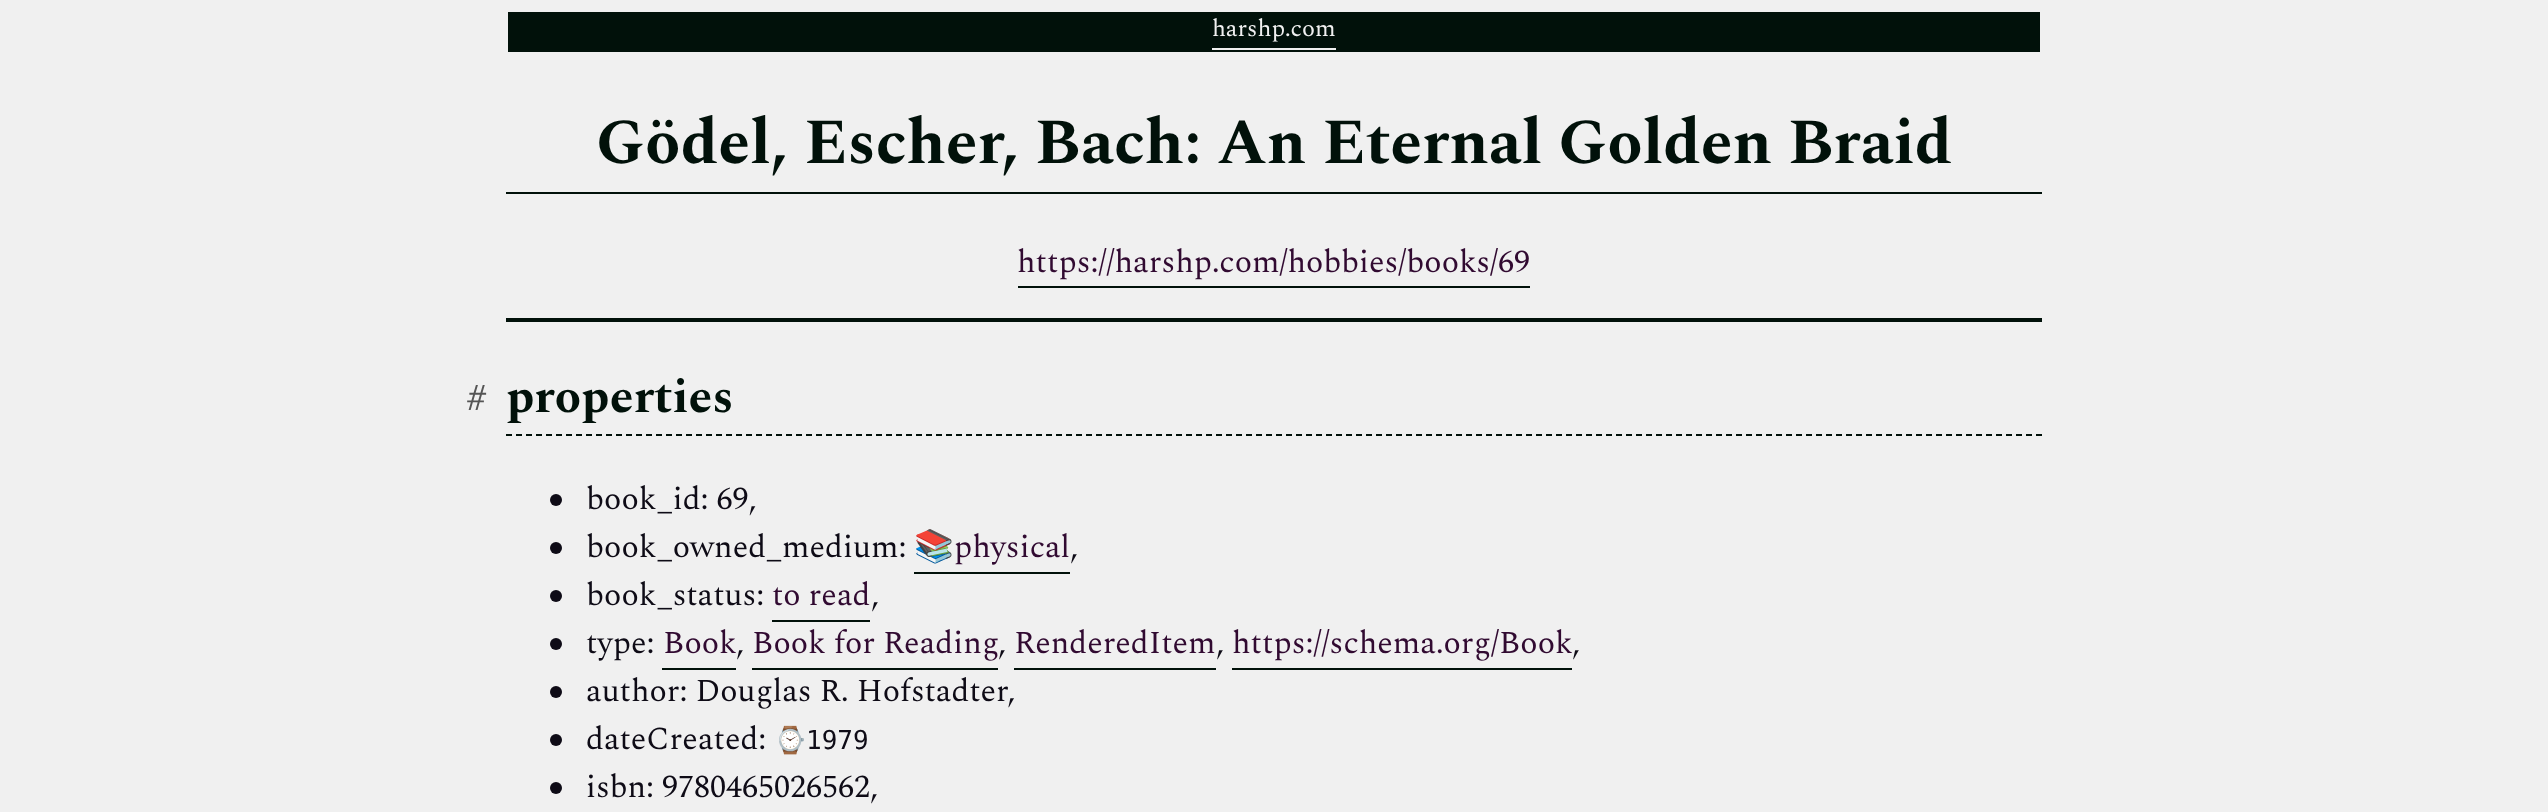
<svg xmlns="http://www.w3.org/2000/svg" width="2548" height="812">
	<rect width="100%" height="100%" fill="#F0F0F0" />
	<rect x="508" y="12" width="1532" height="40" fill="#01110A" />
	<text x="1212" y="36" font-family="Spectral" font-size="24" fill="#F0F0F0">harshp.com</text>
	<rect x="1212" y="48" width="124" height="2" fill="#F0F0F0" />
	<rect x="506" y="192" width="1536" height="2" fill="#01110A" />
	<text x="596" y="163" font-family="Spectral" font-size="64" font-weight="700" fill="#01110A">Gödel, Escher, Bach: An Eternal Golden Braid</text>
	<rect x="506" y="318" width="1536" height="4" fill="#01110A" />
	<text x="1017" y="272" font-family="Spectral" font-size="32" fill="#310A31">https://harshp.com/hobbies/books/69</text>
	<rect x="1018" y="286" width="512" height="2" fill="#01110A" />
	<path d="M506 435H2042" fill="none" stroke="#01110A" stroke-width="2" stroke-dasharray="6 4" />
	<text x="466" y="410" font-family="Spectral" font-size="38" font-weight="700" fill="#555555">#</text>
	<text x="506" y="412" font-family="Spectral" font-size="48" font-weight="700" fill="#01110A">properties</text>
	<circle cx="556" cy="500" r="6" fill="#0E0B16" />
	<text x="586" y="509" font-family="Spectral" font-size="32" fill="#0E0B16">book_id: 69,</text>
	<circle cx="556" cy="548" r="6" fill="#0E0B16" />
	<text x="586" y="557" font-family="Spectral" font-size="32" fill="#0E0B16">book_owned_medium:</text>
	<text x="914" y="557" font-family="Noto Color Emoji" font-size="32" fill="#310A31">📚</text>
	<text x="954" y="557" font-family="Spectral" font-size="32" fill="#310A31">physical</text>
	<rect x="914" y="572" width="156" height="2" fill="#01110A" />
	<text x="1070" y="557" font-family="Spectral" font-size="32" fill="#0E0B16">,</text>
	<circle cx="556" cy="596" r="6" fill="#0E0B16" />
	<text x="586" y="605" font-family="Spectral" font-size="32" fill="#0E0B16">book_status:</text>
	<text x="772" y="605" font-family="Spectral" font-size="32" fill="#310A31">to read</text>
	<rect x="772" y="620" width="98" height="2" fill="#01110A" />
	<text x="871" y="605" font-family="Spectral" font-size="32" fill="#0E0B16">,</text>
	<circle cx="556" cy="644" r="6" fill="#0E0B16" />
	<text x="586" y="653" font-family="Spectral" font-size="32" fill="#0E0B16">type:</text>
	<text x="663" y="653" font-family="Spectral" font-size="32" fill="#310A31">Book</text>
	<rect x="662" y="668" width="74" height="2" fill="#01110A" />
	<text x="752" y="653" font-family="Spectral" font-size="32" fill="#310A31">Book for Reading</text>
	<rect x="752" y="668" width="246" height="2" fill="#01110A" />
	<text x="1014" y="653" font-family="Spectral" font-size="32" fill="#310A31">RenderedItem</text>
	<rect x="1014" y="668" width="202" height="2" fill="#01110A" />
	<text x="1232" y="653" font-family="Spectral" font-size="32" fill="#310A31">https://schema.org/Book</text>
	<rect x="1232" y="668" width="340" height="2" fill="#01110A" />
	<g font-family="Spectral" font-size="32" fill="#0E0B16">
		<text x="736" y="653">,</text>
		<text x="998" y="653">,</text>
		<text x="1216" y="653">,</text>
		<text x="1572" y="653">,</text>
	</g>
	<circle cx="556" cy="692" r="6" fill="#0E0B16" />
	<text x="586" y="701" font-family="Spectral" font-size="32" fill="#0E0B16">author: Douglas R. Hofstadter,</text>
	<circle cx="556" cy="740" r="6" fill="#0E0B16" />
	<text x="586" y="749" font-family="Spectral" font-size="32" fill="#0E0B16">dateCreated:</text>
	<text x="774" y="749" font-family="Noto Color Emoji" font-size="26" fill="#0E0B16">⌚</text>
	<text x="806" y="749" font-family="DejaVu Sans Mono" font-size="26" fill="#0E0B16">1979</text>
	<circle cx="556" cy="788" r="6" fill="#0E0B16" />
	<text x="586" y="797" font-family="Spectral" font-size="32" fill="#0E0B16">isbn: 9780465026562,</text>
</svg>
